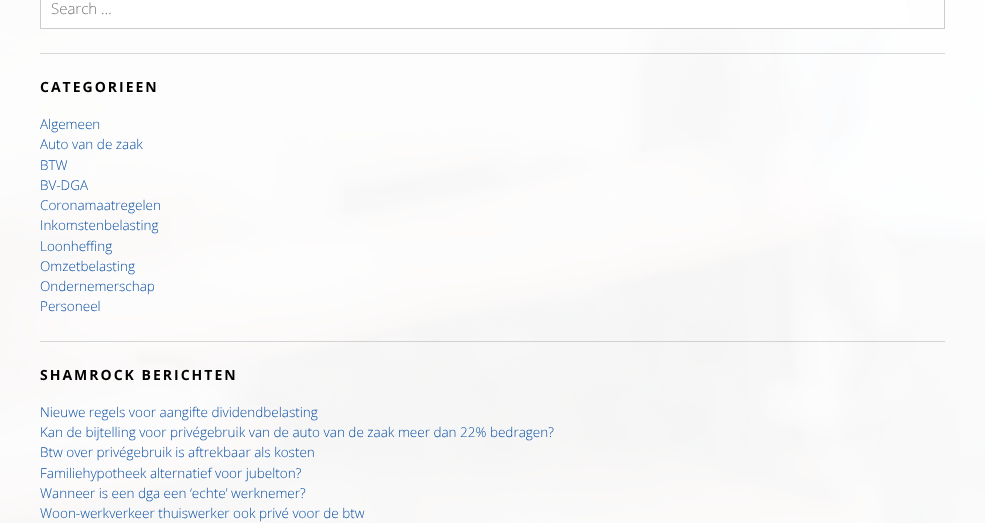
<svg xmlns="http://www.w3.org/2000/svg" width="985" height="523">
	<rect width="100%" height="100%" fill="#FFFFFF" />
	<image x="0" y="0" width="985" height="523" href="assets/img1.png" />
	<rect x="41" y="0" width="866" height="28" fill="#FFFFFF" />
	<rect x="40.5" y="-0.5" width="904" height="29" fill="none" stroke="#CCCCCC" />
	<text x="51" y="14" font-family="Open Sans" font-size="15" font-weight="300" fill="#757575">Search …</text>
	<rect x="40" y="53" width="905" height="1" fill="#000000" fill-opacity="0.15" />
	<text x="40" y="92" font-family="Open Sans" font-size="14" font-weight="700" letter-spacing="2" fill="#000000">CATEGORIEEN</text>
	<g font-family="Open Sans" font-size="13.5" font-weight="300" fill="#094FA3">
		<text x="40" y="129">Algemeen</text>
		<text x="40" y="149">Auto van de zaak</text>
		<text x="40" y="170">BTW</text>
		<text x="40" y="190">BV-DGA</text>
		<text x="40" y="210">Coronamaatregelen</text>
		<text x="40" y="230">Inkomstenbelasting</text>
		<text x="40" y="251">Loonheffing</text>
		<text x="40" y="271">Omzetbelasting</text>
		<text x="40" y="291">Ondernemerschap</text>
		<text x="40" y="311">Personeel</text>
	</g>
	<rect x="40" y="341" width="905" height="1" fill="#000000" fill-opacity="0.15" />
	<text x="40" y="380" font-family="Open Sans" font-size="14" font-weight="700" letter-spacing="2" fill="#000000">SHAMROCK BERICHTEN</text>
	<g font-family="Open Sans" font-size="13.5" font-weight="300" fill="#094FA3">
		<text x="40" y="417">Nieuwe regels voor aangifte dividendbelasting</text>
		<text x="40" y="437">Kan de bijtelling voor privégebruik van de auto van de zaak meer dan 22% bedragen?</text>
		<text x="40" y="457">Btw over privégebruik is aftrekbaar als kosten</text>
		<text x="40" y="478">Familiehypotheek alternatief voor jubelton?</text>
		<text x="40" y="498">Wanneer is een dga een ‘echte’ werknemer?</text>
		<text x="40" y="518">Woon-werkverkeer thuiswerker ook privé voor de btw</text>
	</g>
</svg>
